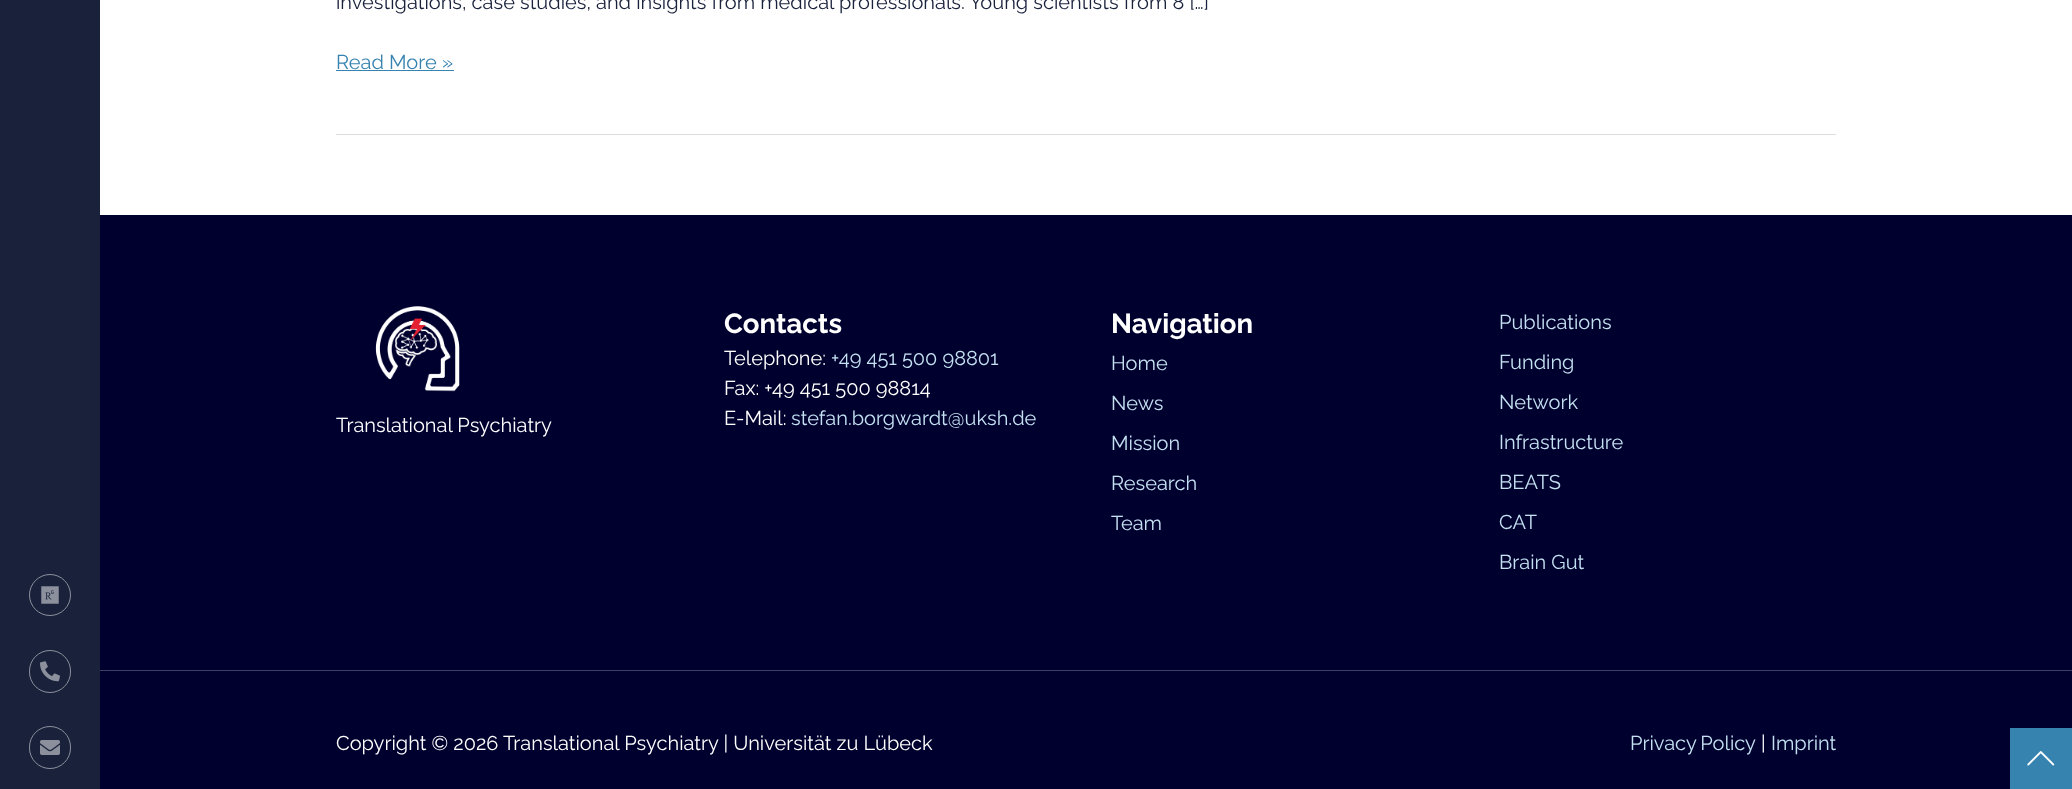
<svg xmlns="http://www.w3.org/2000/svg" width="2072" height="789">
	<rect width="100%" height="100%" fill="#FFFFFF" />
	<rect x="0" y="0" width="100" height="789" fill="#19213B" />
	<circle cx="50" cy="595" r="20.5" fill="none" stroke="#8C909D" />
	<image x="41" y="586" width="18" height="18" href="assets/img1.png" />
	<rect x="29.5" y="650.5" width="41" height="42" rx="20.5" fill="none" stroke="#8C909D" />
	<image x="40" y="661" width="20" height="21" href="assets/img2.png" />
	<rect x="29.5" y="726.5" width="41" height="42" rx="20.5" fill="none" stroke="#8C909D" />
	<image x="40" y="740" width="20" height="15" href="assets/img3.png" />
	<rect x="336" y="134" width="1500" height="1" fill="#DDDDDD" />
	<text x="336" y="9" font-family="Raleway" font-size="20" fill="#19213B">investigations, case studies, and insights from medical professionals. Young scientists from 8 […]</text>
	<text x="336" y="69" font-family="Raleway" font-size="20" fill="#3783B0">Read More »</text>
	<rect x="336" y="70" width="118" height="1" fill="#3783B0" />
	<rect x="100" y="215" width="1972" height="455" fill="#00002E" />
	<image x="375" y="306" width="85" height="86" href="assets/img4.png" />
	<text x="336" y="432" font-family="Raleway" font-size="20" fill="#FFFFFF">Translational Psychiatry</text>
	<text x="724" y="333" font-family="Raleway" font-size="27.5" font-weight="700" fill="#FFFFFF">Contacts</text>
	<text x="724" y="365" font-family="Raleway" font-size="20" fill="#FFFFFF">Telephone:</text>
	<text x="831" y="365" font-family="Raleway" font-size="20" fill="#C4E1F2">+49 451 500 98801</text>
	<g font-family="Raleway" font-size="20" fill="#FFFFFF">
		<text x="724" y="395">Fax: +49 451 500 98814</text>
		<text x="724" y="425">E-Mail:</text>
	</g>
	<text x="791" y="425" font-family="Raleway" font-size="20" fill="#C4E1F2">stefan.borgwardt@uksh.de</text>
	<text x="1111" y="333" font-family="Raleway" font-size="27.5" font-weight="700" fill="#FFFFFF">Navigation</text>
	<g font-family="Raleway" font-size="20" fill="#C4E1F2">
		<text x="1111" y="370">Home</text>
		<text x="1111" y="410">News</text>
		<text x="1111" y="450">Mission</text>
		<text x="1111" y="490">Research</text>
		<text x="1111" y="530">Team</text>
		<text x="1499" y="329">Publications</text>
		<text x="1499" y="369">Funding</text>
		<text x="1499" y="409">Network</text>
		<text x="1499" y="449">Infrastructure</text>
		<text x="1499" y="489">BEATS</text>
		<text x="1499" y="529">CAT</text>
		<text x="1499" y="569">Brain Gut</text>
	</g>
	<rect x="100" y="671" width="1972" height="118" fill="#00002E" />
	<rect x="100" y="670" width="1972" height="1" fill="#404062" />
	<text x="336" y="750" font-family="Raleway" font-size="20" fill="#FFFFFF">Copyright © 2026 Translational Psychiatry | Universität zu Lübeck</text>
	<text x="1630" y="750" word-spacing="-1" font-family="Raleway" font-size="20" fill="#C4E1F2">Privacy Policy</text>
	<text x="1761" y="750" font-family="Raleway" font-size="20" fill="#FFFFFF">|</text>
	<text x="1771" y="750" font-family="Raleway" font-size="20" fill="#C4E1F2">Imprint</text>
	<rect x="2010" y="728" width="62" height="61" fill="#3783B0" />
	<image x="2027" y="751" width="28" height="15" href="assets/img5.png" />
</svg>
